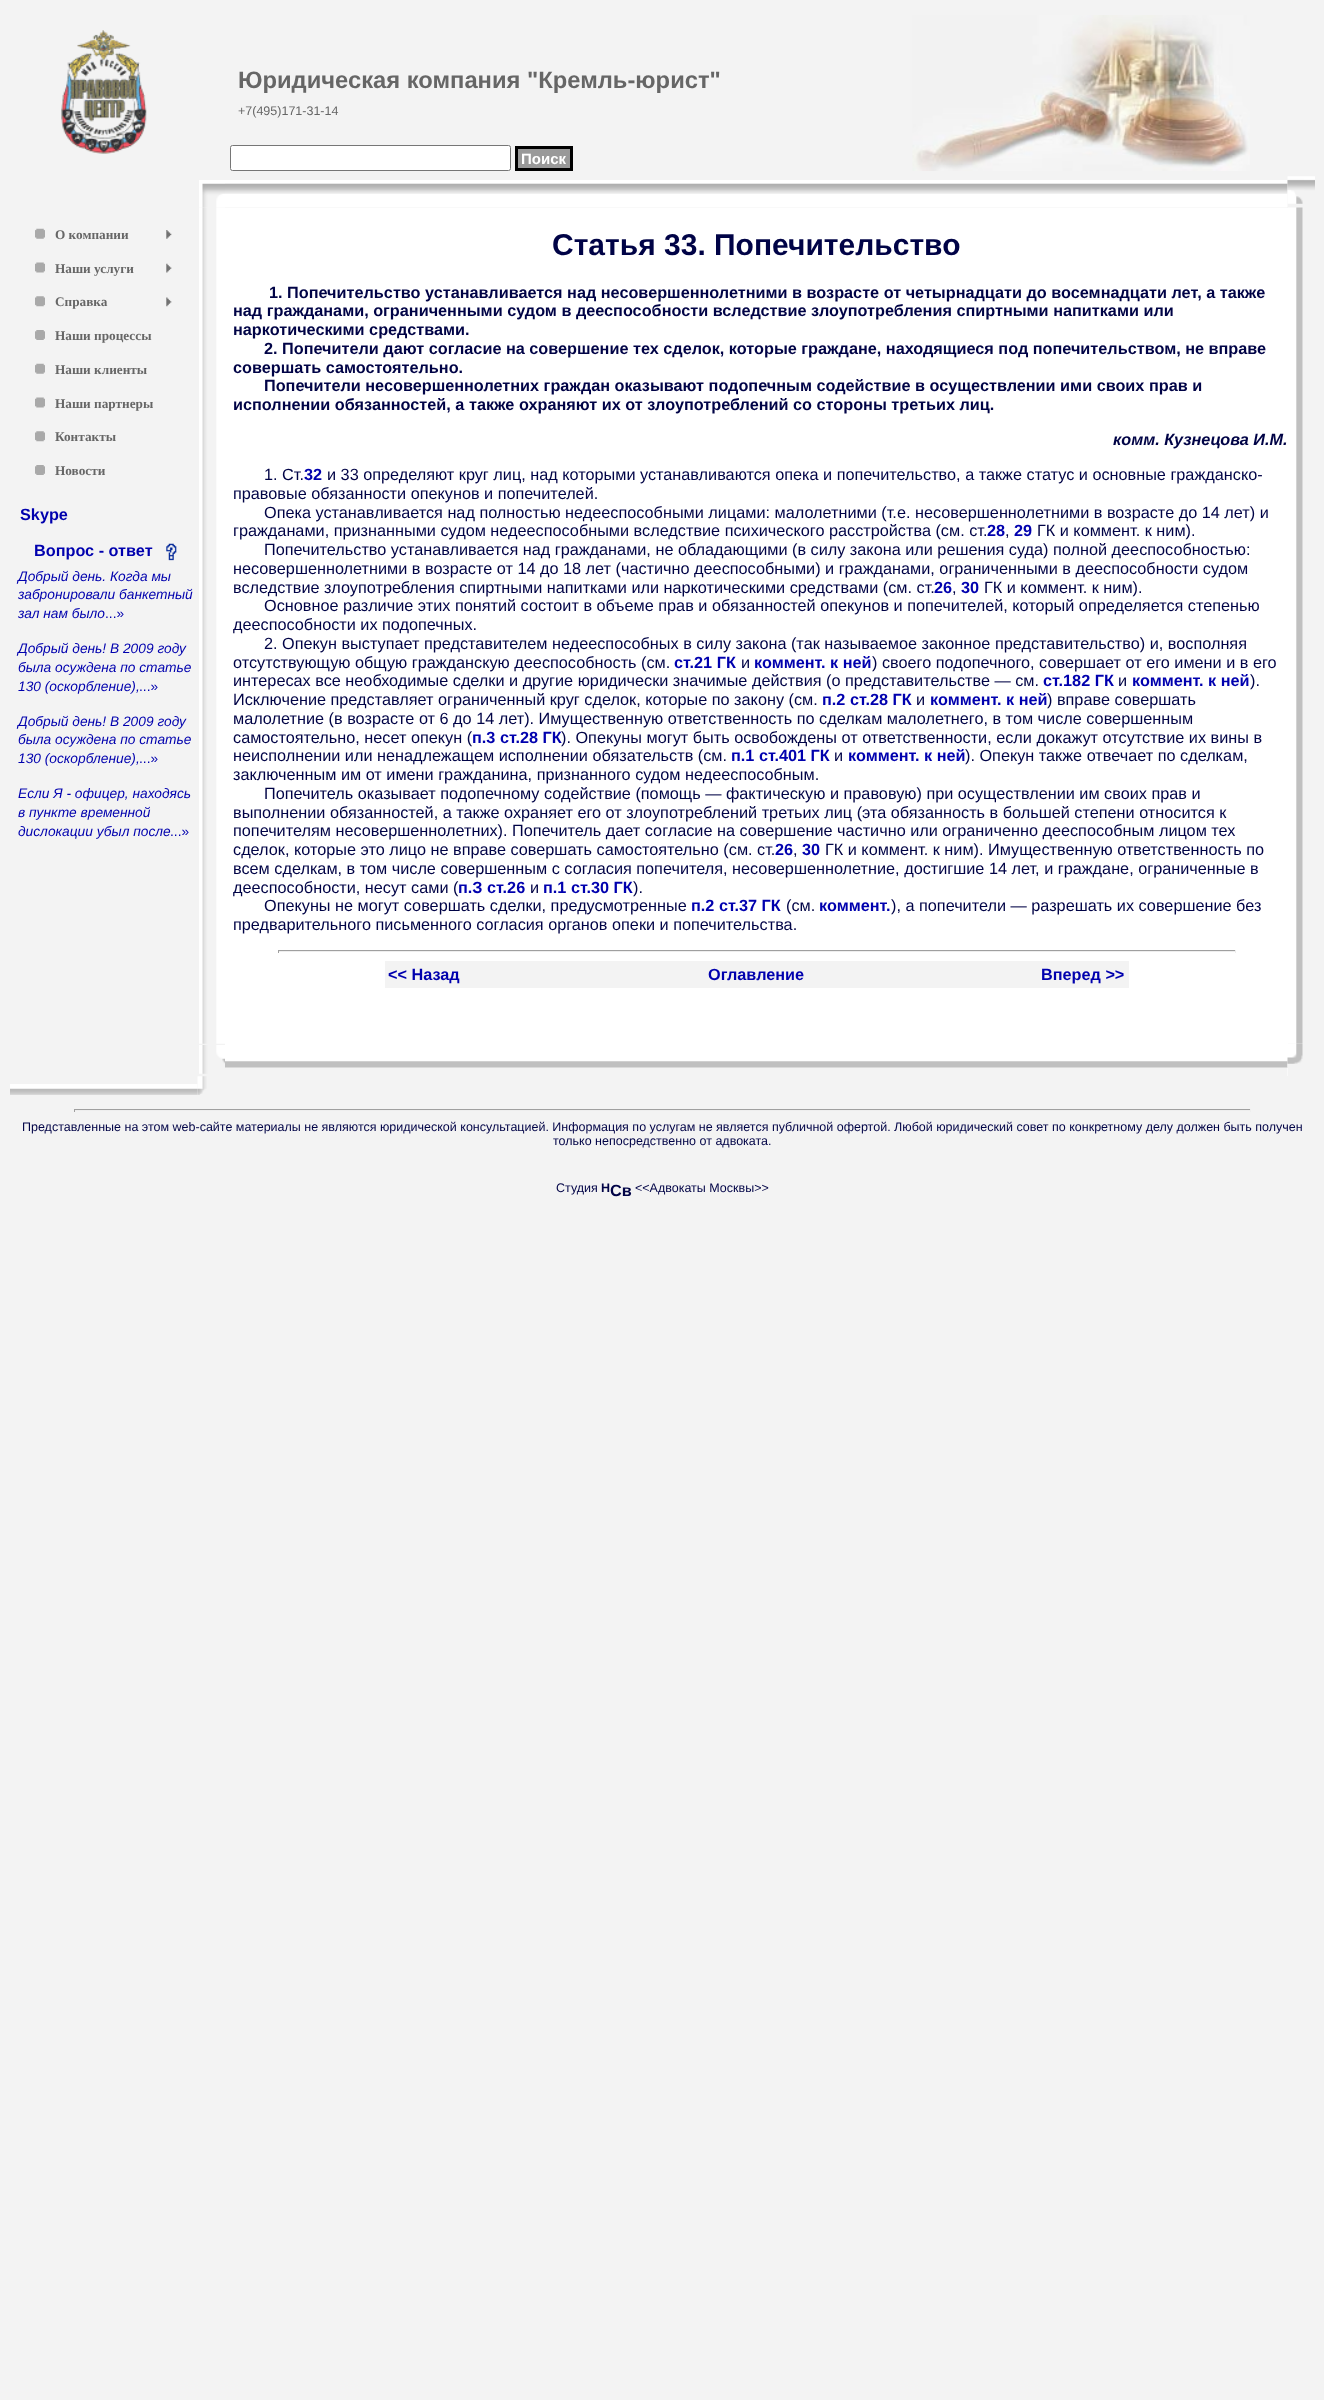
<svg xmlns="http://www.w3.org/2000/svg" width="1324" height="2400">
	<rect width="100%" height="100%" fill="#F3F3F3" />
	<image x="61" y="30" width="86" height="124" href="assets/img1.png" />
	<image x="912" y="15" width="338" height="156" href="assets/img2.png" />
	<text x="238" y="88" font-family="Liberation Sans" font-size="23.75" font-weight="700" fill="#666666">Юридическая компания "Кремль-юрист"</text>
	<text x="238" y="115" font-family="Liberation Sans" font-size="12.5" fill="#666666">+7(495)171-31-14</text>
	<rect x="230.5" y="145.5" width="280" height="25" rx="2" fill="#FFFFFF" stroke="#767676" />
	<rect x="516.5" y="147.5" width="55" height="22" fill="#999999" stroke="#000000" stroke-width="3" />
	<text x="521" y="164" font-family="Liberation Sans" font-size="15" font-weight="700" fill="#FFFFFF">Поиск</text>
	<image x="199" y="180" width="26" height="28" href="assets/img3.png" />
	<image x="225" y="180" width="1063" height="28" href="assets/img4.png" />
	<image x="1287" y="176" width="28" height="28" href="assets/img5.png" />
	<image x="35" y="228" width="10" height="11" href="assets/img6.png" />
	<text x="55" y="239" font-family="Liberation Serif" font-size="13.25" font-weight="700" fill="#666666">О компании</text>
	<image x="166" y="230" width="6" height="9" href="assets/img7.png" />
	<image x="35" y="262" width="10" height="11" href="assets/img8.png" />
	<text x="55" y="273" font-family="Liberation Serif" font-size="13.25" font-weight="700" fill="#666666">Наши услуги</text>
	<image x="166" y="263" width="6" height="10" href="assets/img9.png" />
	<image x="35" y="296" width="10" height="11" href="assets/img10.png" />
	<text x="55" y="306" font-family="Liberation Serif" font-size="13.25" font-weight="700" fill="#666666">Справка</text>
	<image x="166" y="297" width="6" height="10" href="assets/img11.png" />
	<image x="35" y="330" width="10" height="10" href="assets/img12.png" />
	<text x="55" y="340" font-family="Liberation Serif" font-size="13.25" font-weight="700" fill="#666666">Наши процессы</text>
	<image x="35" y="363" width="10" height="11" href="assets/img6.png" />
	<text x="55" y="374" font-family="Liberation Serif" font-size="13.25" font-weight="700" fill="#666666">Наши клиенты</text>
	<image x="35" y="397" width="10" height="11" href="assets/img8.png" />
	<text x="55" y="408" font-family="Liberation Serif" font-size="13.25" font-weight="700" fill="#666666">Наши партнеры</text>
	<image x="35" y="431" width="10" height="11" href="assets/img10.png" />
	<text x="55" y="441" font-family="Liberation Serif" font-size="13.25" font-weight="700" fill="#666666">Контакты</text>
	<image x="35" y="465" width="10" height="10" href="assets/img12.png" />
	<text x="55" y="475" font-family="Liberation Serif" font-size="13.25" font-weight="700" fill="#666666">Новости</text>
	<g font-family="Liberation Sans" font-size="16.25" font-weight="700" fill="#0000AE">
		<text x="20" y="520">Skype</text>
		<text x="34" y="556">Вопрос - ответ</text>
	</g>
	<image x="166" y="543" width="11" height="18" href="assets/img13.png" />
	<g font-family="Liberation Sans" font-size="13.75" font-style="italic" fill="#0000AE">
		<text x="18" y="581">Добрый день. Когда мы</text>
		<text x="18" y="599">забронировали банкетный</text>
		<text x="18" y="618">зал нам было</text>
	</g>
	<text x="105" y="618" font-family="Liberation Sans" font-size="13.75" fill="#0000AE">...»</text>
	<g font-family="Liberation Sans" font-size="13.75" font-style="italic" fill="#0000AE">
		<text x="18" y="653">Добрый день! В 2009 году</text>
		<text x="18" y="672">была осуждена по статье</text>
		<text x="18" y="691">130 (оскорбление),</text>
	</g>
	<text x="139" y="691" font-family="Liberation Sans" font-size="13.75" fill="#0000AE">...»</text>
	<g font-family="Liberation Sans" font-size="13.75" font-style="italic" fill="#0000AE">
		<text x="18" y="726">Добрый день! В 2009 году</text>
		<text x="18" y="744">была осуждена по статье</text>
		<text x="18" y="763">130 (оскорбление),</text>
	</g>
	<text x="139" y="763" font-family="Liberation Sans" font-size="13.75" fill="#0000AE">...»</text>
	<g font-family="Liberation Sans" font-size="13.75" font-style="italic" fill="#0000AE">
		<text x="18" y="798">Если Я - офицер, находясь</text>
		<text x="18" y="817">в пункте временной</text>
		<text x="18" y="836">дислокации убыл после</text>
	</g>
	<text x="170" y="836" font-family="Liberation Sans" font-size="13.75" fill="#0000AE">...»</text>
	<image x="199" y="207" width="26" height="837" href="assets/img14.png" />
	<rect x="225" y="208" width="1063" height="868" fill="#FFFFFF" />
	<text x="552" y="255" font-family="Liberation Sans" font-size="30" font-weight="700" fill="#000346">Статья 33. Попечительство</text>
	<g font-family="Liberation Sans" font-size="16.25" font-weight="700" fill="#000346">
		<text x="269" y="298">1. Попечительство устанавливается над несовершеннолетними в возрасте от четырнадцати до восемнадцати лет, а также</text>
		<text x="233" y="316">над гражданами, ограниченными судом в дееспособности вследствие злоупотребления спиртными напитками или</text>
		<text x="233" y="335">наркотическими средствами.</text>
		<text x="264" y="354">2. Попечители дают согласие на совершение тех сделок, которые граждане, находящиеся под попечительством, не вправе</text>
		<text x="233" y="373">совершать самостоятельно.</text>
		<text x="264" y="391">Попечители несовершеннолетних граждан оказывают подопечным содействие в осуществлении ими своих прав и</text>
		<text x="233" y="410">исполнении обязанностей, а также охраняют их от злоупотреблений со стороны третьих лиц.</text>
	</g>
	<text x="1113" y="445" font-family="Liberation Sans" font-size="16.25" font-weight="700" font-style="italic" fill="#000346">комм. Кузнецова И.М.</text>
	<text x="264" y="480" font-family="Liberation Sans" font-size="16.25" fill="#000346">1. Ст.</text>
	<text x="304" y="480" font-family="Liberation Sans" font-size="16.25" font-weight="700" fill="#0000AE">32</text>
	<g font-family="Liberation Sans" font-size="16.25" fill="#000346">
		<text x="327" y="480">и 33 определяют круг лиц, над которыми устанавливаются опека и попечительство, а также статус и основные гражданско-</text>
		<text x="233" y="499">правовые обязанности опекунов и попечителей.</text>
		<text x="264" y="518">Опека устанавливается над полностью недееспособными лицами: малолетними (т.е. несовершеннолетними в возрасте до 14 лет) и</text>
		<text x="233" y="536">гражданами, признанными судом недееспособными вследствие психического расстройства (см. ст.</text>
	</g>
	<text x="987" y="536" font-family="Liberation Sans" font-size="16.25" font-weight="700" fill="#0000AE">28</text>
	<text x="1005" y="536" font-family="Liberation Sans" font-size="16.25" fill="#000346">,</text>
	<text x="1014" y="536" font-family="Liberation Sans" font-size="16.25" font-weight="700" fill="#0000AE">29</text>
	<g font-family="Liberation Sans" font-size="16.25" fill="#000346">
		<text x="1037" y="536">ГК и коммент. к ним).</text>
		<text x="264" y="555">Попечительство устанавливается над гражданами, не обладающими (в силу закона или решения суда) полной дееспособностью:</text>
		<text x="233" y="574">несовершеннолетними в возрасте от 14 до 18 лет (частично дееспособными) и гражданами, ограниченными в дееспособности судом</text>
		<text x="233" y="593">вследствие злоупотребления спиртными напитками или наркотическими средствами (см. ст.</text>
	</g>
	<text x="934" y="593" font-family="Liberation Sans" font-size="16.25" font-weight="700" fill="#0000AE">26</text>
	<text x="952" y="593" font-family="Liberation Sans" font-size="16.25" fill="#000346">,</text>
	<text x="961" y="593" font-family="Liberation Sans" font-size="16.25" font-weight="700" fill="#0000AE">30</text>
	<g font-family="Liberation Sans" font-size="16.25" fill="#000346">
		<text x="984" y="593">ГК и коммент. к ним).</text>
		<text x="264" y="611">Основное различие этих понятий состоит в объеме прав и обязанностей опекунов и попечителей, который определяется степенью</text>
		<text x="233" y="630">дееспособности их подопечных.</text>
		<text x="264" y="649">2. Опекун выступает представителем недееспособных в силу закона (так называемое законное представительство) и, восполняя</text>
		<text x="233" y="668">отсутствующую общую гражданскую дееспособность (см.</text>
	</g>
	<text x="674" y="668" font-family="Liberation Sans" font-size="16.25" font-weight="700" fill="#0000AE">ст.21 ГК</text>
	<text x="741" y="668" font-family="Liberation Sans" font-size="16.25" fill="#000346">и</text>
	<text x="754" y="668" font-family="Liberation Sans" font-size="16.25" font-weight="700" fill="#0000AE">коммент. к ней</text>
	<g font-family="Liberation Sans" font-size="16.25" fill="#000346">
		<text x="872" y="668">) своего подопечного, совершает от его имени и в его</text>
		<text x="233" y="686">интересах все необходимые сделки и другие юридически значимые действия (о представительстве — см.</text>
	</g>
	<text x="1043" y="686" font-family="Liberation Sans" font-size="16.25" font-weight="700" fill="#0000AE">ст.182 ГК</text>
	<text x="1118" y="686" font-family="Liberation Sans" font-size="16.25" fill="#000346">и</text>
	<text x="1132" y="686" font-family="Liberation Sans" font-size="16.25" font-weight="700" fill="#0000AE">коммент. к ней</text>
	<g font-family="Liberation Sans" font-size="16.25" fill="#000346">
		<text x="1250" y="686">).</text>
		<text x="233" y="705">Исключение представляет ограниченный круг сделок, которые по закону (см.</text>
	</g>
	<text x="822" y="705" font-family="Liberation Sans" font-size="16.25" font-weight="700" fill="#0000AE">п.2 ст.28 ГК</text>
	<text x="916" y="705" font-family="Liberation Sans" font-size="16.25" fill="#000346">и</text>
	<text x="930" y="705" font-family="Liberation Sans" font-size="16.25" font-weight="700" fill="#0000AE">коммент. к ней</text>
	<g font-family="Liberation Sans" font-size="16.25" fill="#000346">
		<text x="1047" y="705">) вправе совершать</text>
		<text x="233" y="724">малолетние (в возрасте от 6 до 14 лет). Имущественную ответственность по сделкам малолетнего, в том числе совершенным</text>
		<text x="233" y="743">самостоятельно, несет опекун (</text>
	</g>
	<text x="472" y="743" font-family="Liberation Sans" font-size="16.25" font-weight="700" fill="#0000AE">п.3 ст.28 ГК</text>
	<g font-family="Liberation Sans" font-size="16.25" fill="#000346">
		<text x="561" y="743">). Опекуны могут быть освобождены от ответственности, если докажут отсутствие их вины в</text>
		<text x="233" y="761">неисполнении или ненадлежащем исполнении обязательств (см.</text>
	</g>
	<text x="731" y="761" font-family="Liberation Sans" font-size="16.25" font-weight="700" fill="#0000AE">п.1 ст.401 ГК</text>
	<text x="834" y="761" font-family="Liberation Sans" font-size="16.25" fill="#000346">и</text>
	<text x="848" y="761" font-family="Liberation Sans" font-size="16.25" font-weight="700" fill="#0000AE">коммент. к ней</text>
	<g font-family="Liberation Sans" font-size="16.25" fill="#000346">
		<text x="965" y="761">). Опекун также отвечает по сделкам,</text>
		<text x="233" y="780">заключенным им от имени гражданина, признанного судом недееспособным.</text>
		<text x="264" y="799">Попечитель оказывает подопечному содействие (помощь — фактическую и правовую) при осуществлении им своих прав и</text>
		<text x="233" y="818">выполнении обязанностей, а также охраняет его от злоупотреблений третьих лиц (эта обязанность в большей степени относится к</text>
		<text x="233" y="836">попечителям несовершеннолетних). Попечитель дает согласие на совершение частично или ограниченно дееспособным лицом тех</text>
		<text x="233" y="855">сделок, которые это лицо не вправе совершать самостоятельно (см. ст.</text>
	</g>
	<text x="775" y="855" font-family="Liberation Sans" font-size="16.25" font-weight="700" fill="#0000AE">26</text>
	<text x="793" y="855" font-family="Liberation Sans" font-size="16.25" fill="#000346">,</text>
	<text x="802" y="855" font-family="Liberation Sans" font-size="16.25" font-weight="700" fill="#0000AE">30</text>
	<g font-family="Liberation Sans" font-size="16.25" fill="#000346">
		<text x="825" y="855">ГК и коммент. к ним). Имущественную ответственность по</text>
		<text x="233" y="874">всем сделкам, в том числе совершенным с согласия попечителя, несовершеннолетние, достигшие 14 лет, и граждане, ограниченные в</text>
		<text x="233" y="893">дееспособности, несут сами (</text>
	</g>
	<text x="458" y="893" font-family="Liberation Sans" font-size="16.25" font-weight="700" fill="#0000AE">п.З ст.26</text>
	<text x="530" y="893" font-family="Liberation Sans" font-size="16.25" fill="#000346">и</text>
	<text x="543" y="893" font-family="Liberation Sans" font-size="16.25" font-weight="700" fill="#0000AE">п.1 ст.30 ГК</text>
	<g font-family="Liberation Sans" font-size="16.25" fill="#000346">
		<text x="633" y="893">).</text>
		<text x="264" y="911">Опекуны не могут совершать сделки, предусмотренные</text>
	</g>
	<text x="691" y="911" font-family="Liberation Sans" font-size="16.25" font-weight="700" fill="#0000AE">п.2 ст.37 ГК</text>
	<text x="786" y="911" font-family="Liberation Sans" font-size="16.25" fill="#000346">(см.</text>
	<text x="819" y="911" font-family="Liberation Sans" font-size="16.25" font-weight="700" fill="#0000AE">коммент.</text>
	<g font-family="Liberation Sans" font-size="16.25" fill="#000346">
		<text x="891" y="911">), а попечители — разрешать их совершение без</text>
		<text x="233" y="930">предварительного письменного согласия органов опеки и попечительства.</text>
	</g>
	<rect x="278" y="950" width="958" height="1" fill="#9F9F9F" />
	<rect x="1235" y="950" width="1" height="3" fill="#EEEEEE" />
	<rect x="278" y="951" width="958" height="1" fill="#EEEEEE" />
	<rect x="278" y="950" width="1" height="3" fill="#9F9F9F" />
	<rect x="385" y="961" width="744" height="27" fill="#F3F3F3" />
	<g font-family="Liberation Sans" font-size="16.25" font-weight="700" fill="#0000AE">
		<text x="388" y="980">&lt;&lt; Назад</text>
		<text x="708" y="980">Оглавление</text>
		<text x="1041" y="980">Вперед &gt;&gt;</text>
	</g>
	<image x="1288" y="207" width="15" height="837" href="assets/img15.png" />
	<image x="199" y="1045" width="26" height="29" href="assets/img16.png" />
	<image x="225" y="1061" width="1063" height="15" href="assets/img17.png" />
	<image x="1287" y="1044" width="16" height="23" href="assets/img18.png" />
	<image x="10" y="1084" width="188" height="11" href="assets/img19.png" />
	<image x="197" y="1076" width="10" height="19" href="assets/img20.png" />
	<rect x="74" y="1109" width="1177" height="1" fill="#9F9F9F" />
	<rect x="1250" y="1109" width="1" height="3" fill="#EEEEEE" />
	<rect x="74" y="1110" width="1177" height="1" fill="#EEEEEE" />
	<rect x="74" y="1109" width="1" height="3" fill="#9F9F9F" />
	<g font-family="Liberation Sans" font-size="12.5" fill="#000346">
		<text x="22" y="1131">Представленные на этом web-сайте материалы не являются юридической консультацией. Информация по услугам не является публичной офертой. Любой юридический совет по конкретному делу должен быть получен</text>
		<text x="553" y="1145">только непосредственно от адвоката.</text>
		<text x="556" y="1192">Студия</text>
	</g>
	<text x="601" y="1192" font-family="Liberation Sans" font-size="12.5" font-weight="700" fill="#000346">Н</text>
	<text x="610" y="1196" font-family="Liberation Sans" font-size="16.25" font-weight="700" fill="#000346">Св</text>
	<text x="635" y="1192" font-family="Liberation Sans" font-size="12.5" fill="#000346">&lt;&lt;Адвокаты Москвы&gt;&gt;</text>
</svg>
